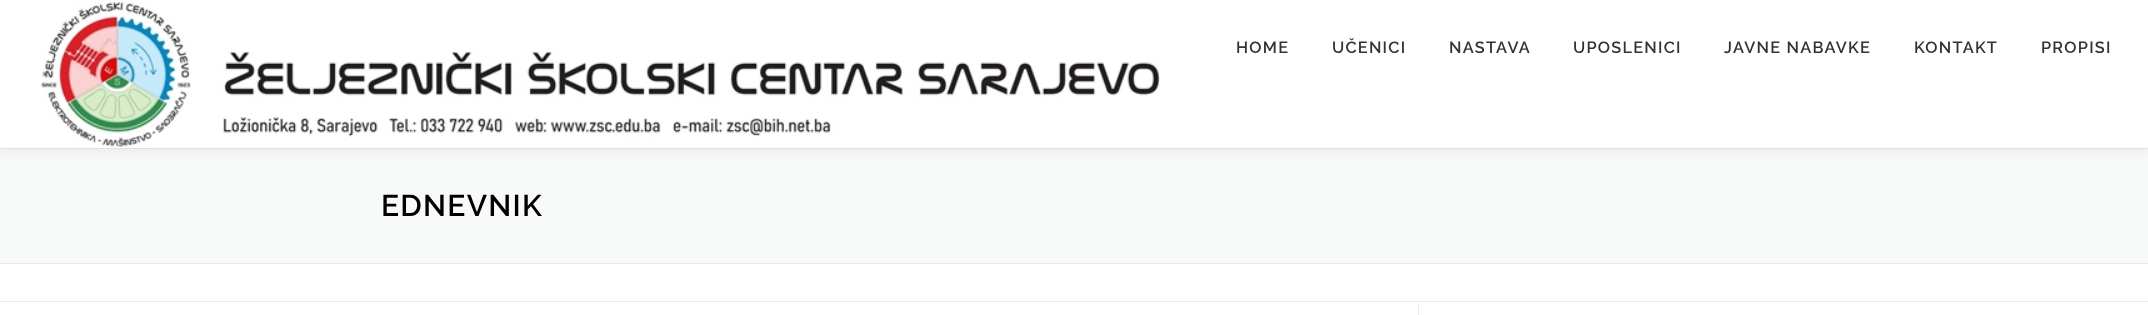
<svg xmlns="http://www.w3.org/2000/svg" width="2148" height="315">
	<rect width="100%" height="100%" fill="#FFFFFF" />
	<rect x="0" y="149" width="2148" height="114" fill="#F8F9F9" />
	<rect x="0" y="148" width="2148" height="1" fill="#E9E9E9" />
	<rect x="0" y="6" width="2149" height="148" fill="#323232" fill-opacity="0.06" filter="blur(6px)" />
	<rect x="0" y="1" width="2148" height="147" fill="#FFFFFF" />
	<image x="41" y="2" width="1119" height="145" href="assets/img1.png" />
	<g font-family="Raleway" font-size="16.25" font-weight="600" letter-spacing="1.25" fill="#333333">
		<text x="1236" y="53">HOME</text>
		<text x="1332" y="53">UČENICI</text>
		<text x="1449" y="53">NASTAVA</text>
		<text x="1573" y="53">UPOSLENICI</text>
		<text x="1724" y="53">JAVNE NABAVKE</text>
		<text x="1914" y="53">KONTAKT</text>
		<text x="2041" y="53">PROPISI</text>
	</g>
	<rect x="0" y="263" width="2148" height="1" fill="#E9E9E9" />
	<text x="381" y="216" font-family="Raleway" font-size="30" font-weight="600" letter-spacing="1.25" fill="#000000">EDNEVNIK</text>
	<rect x="0" y="301" width="2148" height="1" fill="#E9E9E9" />
	<rect x="1418" y="303" width="1" height="12" fill="#E9E9E9" />
</svg>
